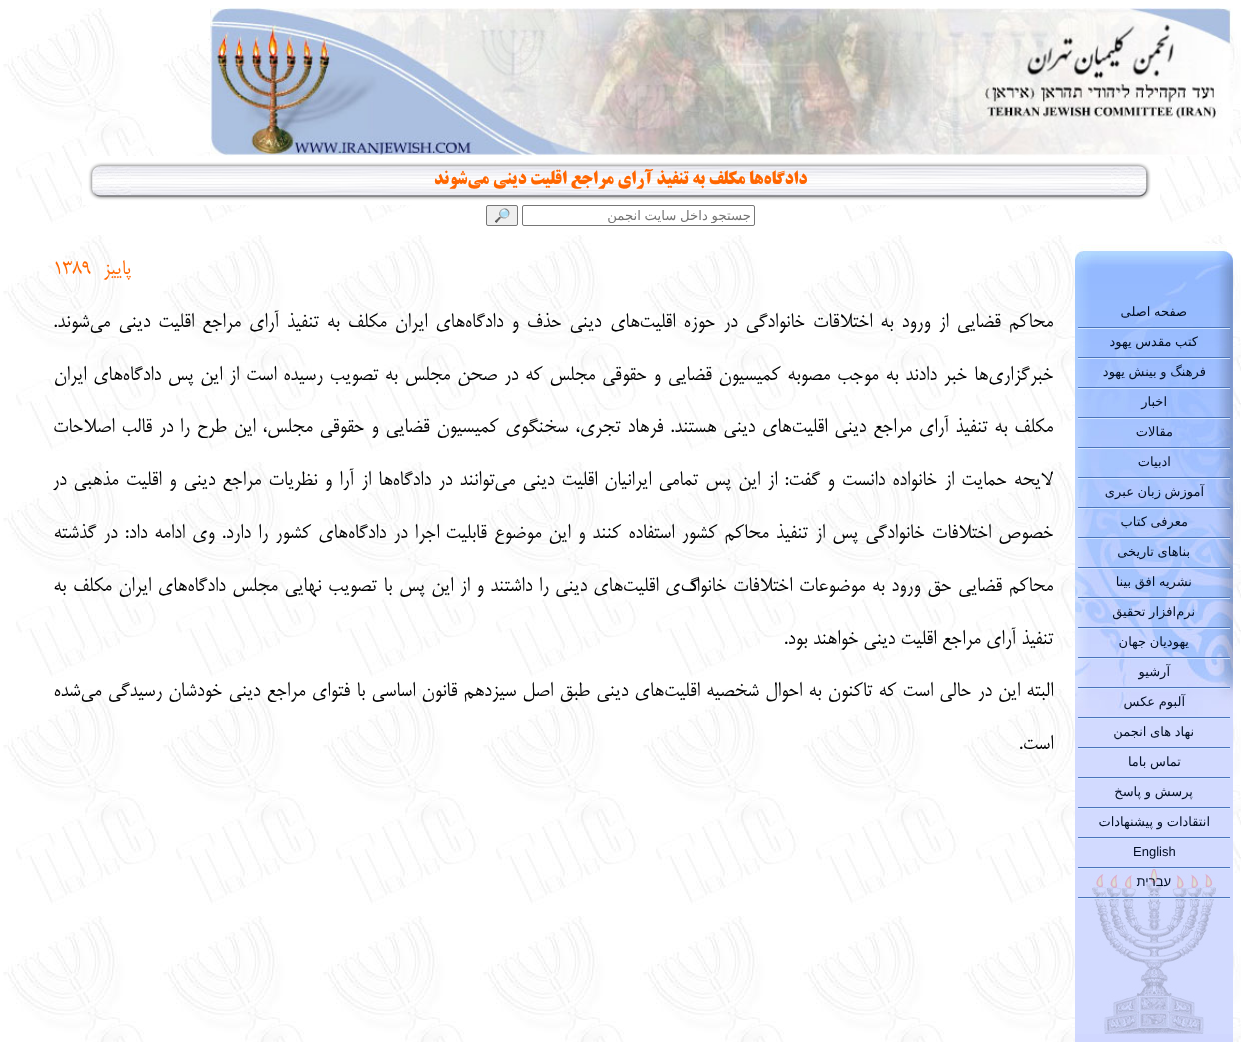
<svg xmlns="http://www.w3.org/2000/svg" width="1241" height="1042">
	<defs>
		<clipPath id="clip1"><rect x="526" y="208" width="225" height="15" /></clipPath>
	</defs>
	<rect width="100%" height="100%" fill="#FFFFFF" />
	<image x="3" y="8" width="1238" height="1034" href="assets/img1.png" />
	<image x="210" y="8" width="1023" height="148" href="assets/img2.png" />
	<image x="1111" y="156" width="49" height="44" href="assets/img3.png" />
	<image x="131" y="156" width="980" height="49" href="assets/img4.png" />
	<text x="807" y="184" font-family="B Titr" font-size="18.7" font-weight="700" direction="rtl" fill="#FF6600">دادگاه‌ها مکلف به تنفیذ آرای مراجع اقلیت دینی می‌شوند</text>
	<image x="82" y="156" width="49" height="49" href="assets/img5.png" />
	<rect x="522.5" y="205.5" width="232" height="20" rx="1.5" fill="#FFFFFF" stroke="#767676" />
	<g clip-path="url(#clip1)">
		<text x="751" y="220" word-spacing="-0.5" font-family="DejaVu Sans" font-size="13.25" direction="rtl" fill="#757575">جستجو داخل سایت انجمن</text>
	</g>
	<rect x="486.5" y="205.5" width="31" height="20" rx="1.5" fill="#EFEFEF" stroke="#767676" />
	<text x="494" y="220" font-family="Noto Color Emoji" font-size="13.25" fill="#000000">🔎</text>
	<rect x="1075" y="1034" width="158" height="8" fill="#D0D7FF" />
	<image x="1075" y="244" width="158" height="790" href="assets/img6.png" />
	<rect x="1078" y="328" width="152" height="1" fill="#D5E5FF" />
	<rect x="1078" y="327" width="152" height="1" fill="#4A75BC" />
	<text x="1187" y="316" word-spacing="-0.5" font-family="DejaVu Sans" font-size="13" direction="rtl" fill="#000E24">صفحه اصلی</text>
	<rect x="1078" y="358" width="152" height="1" fill="#D5E5FF" />
	<rect x="1078" y="357" width="152" height="1" fill="#4A75BC" />
	<text x="1198" y="346" word-spacing="-0.5" font-family="DejaVu Sans" font-size="13" direction="rtl" fill="#000E24">کتب مقدس یهود</text>
	<rect x="1078" y="388" width="152" height="1" fill="#D5E5FF" />
	<rect x="1078" y="387" width="152" height="1" fill="#4A75BC" />
	<text x="1206" y="376" word-spacing="-0.5" font-family="DejaVu Sans" font-size="13" direction="rtl" fill="#000E24">فرهنگ و بینش یهود</text>
	<rect x="1078" y="418" width="152" height="1" fill="#D5E5FF" />
	<rect x="1078" y="417" width="152" height="1" fill="#4A75BC" />
	<text x="1167" y="406" font-family="DejaVu Sans" font-size="13" direction="rtl" fill="#000E24">اخبار</text>
	<rect x="1078" y="448" width="152" height="1" fill="#D5E5FF" />
	<rect x="1078" y="447" width="152" height="1" fill="#4A75BC" />
	<text x="1173" y="436" font-family="DejaVu Sans" font-size="13" direction="rtl" fill="#000E24">مقالات</text>
	<rect x="1078" y="478" width="152" height="1" fill="#D5E5FF" />
	<rect x="1078" y="477" width="152" height="1" fill="#4A75BC" />
	<text x="1171" y="466" font-family="DejaVu Sans" font-size="13" direction="rtl" fill="#000E24">ادبیات</text>
	<rect x="1078" y="508" width="152" height="1" fill="#D5E5FF" />
	<rect x="1078" y="507" width="152" height="1" fill="#4A75BC" />
	<text x="1204" y="496" word-spacing="-0.5" font-family="DejaVu Sans" font-size="13" direction="rtl" fill="#000E24">آموزش زبان عبری</text>
	<rect x="1078" y="538" width="152" height="1" fill="#D5E5FF" />
	<rect x="1078" y="537" width="152" height="1" fill="#4A75BC" />
	<text x="1188" y="526" word-spacing="-0.5" font-family="DejaVu Sans" font-size="13" direction="rtl" fill="#000E24">معرفی کتاب</text>
	<rect x="1078" y="568" width="152" height="1" fill="#D5E5FF" />
	<rect x="1078" y="567" width="152" height="1" fill="#4A75BC" />
	<text x="1190" y="556" word-spacing="-0.5" font-family="DejaVu Sans" font-size="13" direction="rtl" fill="#000E24">بناهای تاریخی</text>
	<rect x="1078" y="598" width="152" height="1" fill="#D5E5FF" />
	<rect x="1078" y="597" width="152" height="1" fill="#4A75BC" />
	<text x="1192" y="586" word-spacing="-0.5" font-family="DejaVu Sans" font-size="13" direction="rtl" fill="#000E24">نشریه افق بینا</text>
	<rect x="1078" y="628" width="152" height="1" fill="#D5E5FF" />
	<rect x="1078" y="627" width="152" height="1" fill="#4A75BC" />
	<g font-family="DejaVu Sans" font-size="13" direction="rtl" fill="#000E24">
		<text x="1195" y="616">نرم</text>
		<text x="1176" y="616" word-spacing="-0.5">افزار تحقیق</text>
	</g>
	<rect x="1078" y="658" width="152" height="1" fill="#D5E5FF" />
	<rect x="1078" y="657" width="152" height="1" fill="#4A75BC" />
	<text x="1189" y="646" word-spacing="-0.5" font-family="DejaVu Sans" font-size="13" direction="rtl" fill="#000E24">یهودیان جهان</text>
	<rect x="1078" y="688" width="152" height="1" fill="#D5E5FF" />
	<rect x="1078" y="687" width="152" height="1" fill="#4A75BC" />
	<text x="1170" y="676" font-family="DejaVu Sans" font-size="13" direction="rtl" fill="#000E24">آرشیو</text>
	<rect x="1078" y="718" width="152" height="1" fill="#D5E5FF" />
	<rect x="1078" y="717" width="152" height="1" fill="#4A75BC" />
	<text x="1185" y="706" word-spacing="-0.5" font-family="DejaVu Sans" font-size="13" direction="rtl" fill="#000E24">آلبوم عکس</text>
	<rect x="1078" y="748" width="152" height="1" fill="#D5E5FF" />
	<rect x="1078" y="747" width="152" height="1" fill="#4A75BC" />
	<text x="1194" y="736" word-spacing="-0.5" font-family="DejaVu Sans" font-size="13" direction="rtl" fill="#000E24">نهاد های انجمن</text>
	<rect x="1078" y="778" width="152" height="1" fill="#D5E5FF" />
	<rect x="1078" y="777" width="152" height="1" fill="#4A75BC" />
	<text x="1181" y="766" word-spacing="-0.5" font-family="DejaVu Sans" font-size="13" direction="rtl" fill="#000E24">تماس باما</text>
	<rect x="1078" y="808" width="152" height="1" fill="#D5E5FF" />
	<rect x="1078" y="807" width="152" height="1" fill="#4A75BC" />
	<text x="1193" y="796" word-spacing="-0.5" font-family="DejaVu Sans" font-size="13" direction="rtl" fill="#000E24">پرسش و پاسخ</text>
	<rect x="1078" y="838" width="152" height="1" fill="#D5E5FF" />
	<rect x="1078" y="837" width="152" height="1" fill="#4A75BC" />
	<text x="1210" y="826" word-spacing="-0.5" font-family="DejaVu Sans" font-size="13" direction="rtl" fill="#000E24">انتقادات و پیشنهادات</text>
	<rect x="1078" y="868" width="152" height="1" fill="#D5E5FF" />
	<rect x="1078" y="867" width="152" height="1" fill="#4A75BC" />
	<text x="1133" y="856" font-family="Liberation Sans" font-size="13" fill="#000E24">English</text>
	<rect x="1078" y="898" width="152" height="1" fill="#D5E5FF" />
	<rect x="1078" y="897" width="152" height="1" fill="#4A75BC" />
	<text x="1171" y="886" font-family="Liberation Sans" font-size="13" direction="rtl" fill="#000E24">עברית</text>
	<text x="131" y="274" font-family="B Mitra" font-size="24" direction="rtl" fill="#FF6600">پاییز</text>
	<text x="53" y="274" font-family="B Mitra" font-size="24" fill="#FF6600">1389</text>
	<g font-family="B Mitra" font-size="24" direction="rtl" fill="#000000">
		<text x="1053" y="327" word-spacing="2.6">محاکم قضایی از ورود به اختلاقات خانوادگی در حوزه اقلیت‌های</text>
		<text x="601" y="327" word-spacing="2.6">دینی حذف و دادگاه‌های ایران مکلف به تنفیذ آرای مراجع اقلیت دینی می‌شوند.</text>
		<text x="1053" y="380" word-spacing="1.4">خبرگزاری‌ها خبر دادند به موجب مصوبه کمیسیون قضایی و حقوقی مجلس که در صحن مجلس به</text>
		<text x="378" y="380" word-spacing="1.4">تصویب رسیده است از این پس دادگاه‌های ایران</text>
		<text x="1053" y="432" word-spacing="1.5">مکلف به تنفیذ آرای مراجع دینی</text>
		<text x="827" y="432" word-spacing="1.5">اقلیت‌های دینی هستند. فرهاد تجری، سخنگوی کمیسیون قضایی و حقوقی مجلس، این طرح را</text>
		<text x="173" y="432" word-spacing="1.5">در قالب اصلاحات</text>
		<text x="1053" y="485" word-spacing="1.75">لایحه حمایت از خانواده دانست و گفت: از این پس تمامی ایرانیان</text>
		<text x="597" y="485" word-spacing="1.75">اقلیت دینی می‌توانند در دادگاه‌ها از آرا و نظریات مراجع دینی و اقلیت مذهبی در</text>
		<text x="1053" y="538" word-spacing="1.75">خصوص اختلافات خانوادگی پس از تنفیذ محاکم کشور استفاده کنند و این موضوع قابلیت</text>
		<text x="439" y="538" word-spacing="1.75">اجرا در دادگاه‌های کشور را دارد. وی ادامه داد: در گذشته</text>
		<text x="865" y="591" word-spacing="1.25">موضوعات اختلافات خانواد</text>
		<text x="698" y="591">گ</text>
		<text x="680" y="591" word-spacing="1">ی اقلیت‌های دینی را داشتند و از</text>
		<text x="453" y="591" word-spacing="1.25">این پس با تصویب نهایی مجلس دادگاه‌های ایران مکلف به</text>
		<text x="1053" y="591" word-spacing="1.25">محاکم قضایی حق ورود به</text>
		<text x="1053" y="644">تنفیذ آرای مراجع اقلیت‌ دینی</text>
		<text x="858" y="644">خواهند بود.</text>
		<text x="1053" y="696" word-spacing="0.9">البته این در حالی است که تاکنون به احوال شخصیه اقلیت‌های دینی طبق اصل سیزدهم</text>
		<text x="457" y="696" word-spacing="0.9">قانون اساسی با فتوای مراجع دینی خودشان رسیدگی می‌شده</text>
		<text x="1053" y="749">است.</text>
	</g>
</svg>
